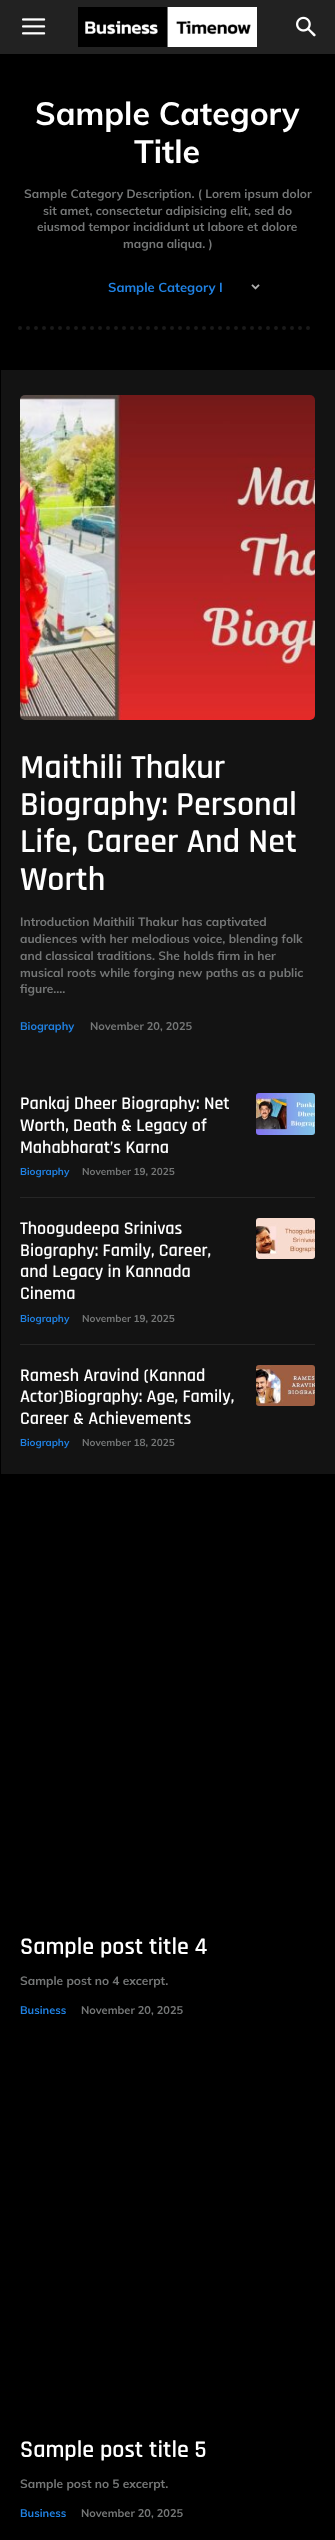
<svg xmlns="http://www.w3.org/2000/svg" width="335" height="2540">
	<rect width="100%" height="100%" fill="#000000" />
	<rect x="0" y="0" width="335" height="54" fill="#222222" />
	<image x="22" y="18" width="24" height="17" href="assets/img1.png" />
	<image x="78" y="7" width="179" height="40" href="assets/img2.png" />
	<image x="296" y="16" width="20" height="21" href="assets/img3.png" />
	<g font-family="Muli" font-size="32" font-weight="700" fill="#FFFFFF">
		<text x="35" y="125">Sample Category</text>
		<text x="134" y="163">Title</text>
	</g>
	<g font-family="Muli" font-size="12" font-weight="700" fill="#757777">
		<text x="24" y="198">Sample Category Description. ( Lorem ipsum dolor</text>
		<text x="43" y="215">sit amet, consectetur adipisicing elit, sed do</text>
		<text x="37" y="231">eiusmod tempor incididunt ut labore et dolore</text>
		<text x="123" y="248">magna aliqua. )</text>
	</g>
	<text x="108" y="292" font-family="Muli" font-size="13" font-weight="700" fill="#2081E2">Sample Category I</text>
	<image x="251" y="284" width="9" height="6" href="assets/img4.png" />
	<path d="M20 328H315" fill="none" stroke="#1A1A1A" stroke-width="4" stroke-linecap="round" stroke-dasharray="0 8" />
	<rect x="1" y="370" width="334" height="1104" fill="#131313" />
	<image x="20" y="395" width="295" height="325" href="assets/img5.png" />
	<g font-family="Rajdhani" font-size="34" font-weight="600" fill="#FFFFFF">
		<text x="20" y="778">Maithili Thakur</text>
		<text x="20" y="815">Biography: Personal</text>
		<text x="20" y="852">Life, Career And Net</text>
		<text x="20" y="890">Worth</text>
	</g>
	<g font-family="Muli" font-size="12" font-weight="700" fill="#757777">
		<text x="20" y="926">Introduction Maithili Thakur has captivated</text>
		<text x="20" y="943">audiences with her melodious voice, blending folk</text>
		<text x="20" y="960">and classical traditions. She holds firm in her</text>
		<text x="20" y="977">musical roots while forging new paths as a public</text>
		<text x="20" y="993">figure....</text>
	</g>
	<text x="20" y="1030" font-family="Muli" font-size="11" font-weight="700" fill="#2081E2">Biography</text>
	<text x="90" y="1030" font-family="Muli" font-size="11" font-weight="700" fill="#757777">November 20, 2025</text>
	<g font-family="Rajdhani" font-size="18" font-weight="600" fill="#FFFFFF">
		<text x="20" y="1109">Pankaj Dheer Biography: Net</text>
		<text x="20" y="1131">Worth, Death &amp; Legacy of</text>
		<text x="20" y="1153">Mahabharat’s Karna</text>
	</g>
	<text x="20" y="1175" font-family="Muli" font-size="10" font-weight="700" fill="#2081E2">Biography</text>
	<text x="82" y="1175" font-family="Muli" font-size="10" font-weight="700" fill="#757777">November 19, 2025</text>
	<image x="256" y="1093" width="59" height="42" href="assets/img6.png" />
	<rect x="20" y="1197" width="295" height="1" fill="#262626" />
	<g font-family="Rajdhani" font-size="18" font-weight="600" fill="#FFFFFF">
		<text x="20" y="1234">Thoogudeepa Srinivas</text>
		<text x="20" y="1256">Biography: Family, Career,</text>
		<text x="20" y="1277">and Legacy in Kannada</text>
		<text x="20" y="1299">Cinema</text>
	</g>
	<text x="20" y="1322" font-family="Muli" font-size="10" font-weight="700" fill="#2081E2">Biography</text>
	<text x="82" y="1322" font-family="Muli" font-size="10" font-weight="700" fill="#757777">November 19, 2025</text>
	<image x="256" y="1218" width="59" height="41" href="assets/img7.png" />
	<rect x="20" y="1344" width="295" height="1" fill="#262626" />
	<g font-family="Rajdhani" font-size="18" font-weight="600" fill="#FFFFFF">
		<text x="20" y="1381">Ramesh Aravind (Kannad</text>
		<text x="20" y="1402">Actor)Biography: Age, Family,</text>
		<text x="20" y="1424">Career &amp; Achievements</text>
	</g>
	<text x="20" y="1446" font-family="Muli" font-size="10" font-weight="700" fill="#2081E2">Biography</text>
	<text x="82" y="1446" font-family="Muli" font-size="10" font-weight="700" fill="#757777">November 18, 2025</text>
	<image x="256" y="1365" width="59" height="41" href="assets/img8.png" />
	<text x="20" y="1954" font-family="Rajdhani" font-size="24" font-weight="600" fill="#FFFFFF">Sample post title 4</text>
	<text x="20" y="1985" font-family="Muli" font-size="12" font-weight="700" fill="#757777">Sample post no 4 excerpt.</text>
	<text x="20" y="2014" font-family="Muli" font-size="11" font-weight="700" fill="#2081E2">Business</text>
	<text x="81" y="2014" font-family="Muli" font-size="11" font-weight="700" fill="#757777">November 20, 2025</text>
	<text x="20" y="2457" font-family="Rajdhani" font-size="24" font-weight="600" fill="#FFFFFF">Sample post title 5</text>
	<text x="20" y="2488" font-family="Muli" font-size="12" font-weight="700" fill="#757777">Sample post no 5 excerpt.</text>
	<text x="20" y="2517" font-family="Muli" font-size="11" font-weight="700" fill="#2081E2">Business</text>
	<text x="81" y="2517" font-family="Muli" font-size="11" font-weight="700" fill="#757777">November 20, 2025</text>
</svg>
